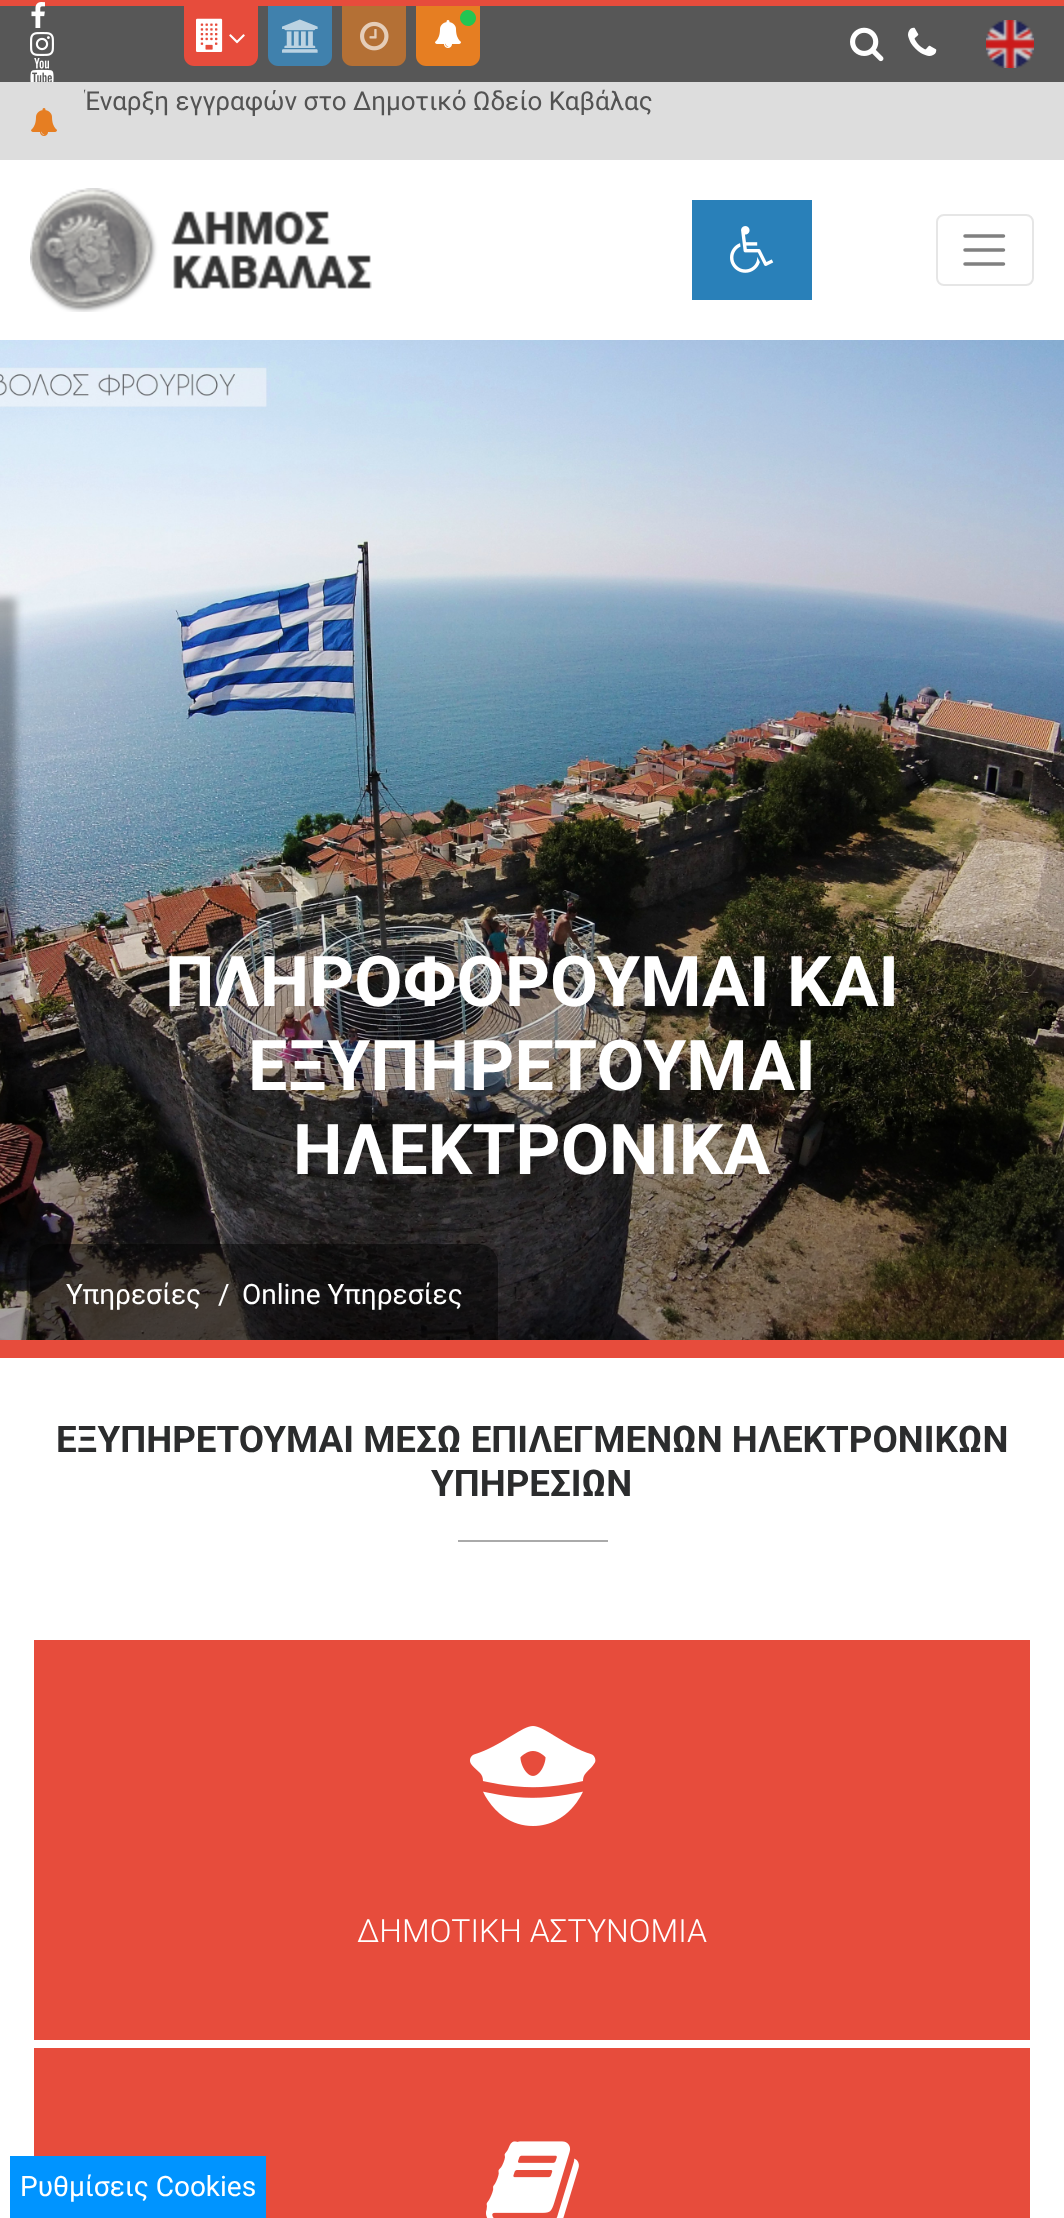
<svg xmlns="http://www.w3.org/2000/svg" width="1064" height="2218">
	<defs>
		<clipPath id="clip1"><rect x="84" y="82" width="836" height="78" /></clipPath>
	</defs>
	<rect width="100%" height="100%" fill="#FFFFFF" />
	<rect x="0" y="6" width="1064" height="76" fill="#575757" />
	<rect x="0" y="0" width="1064" height="6" fill="#E74C3C" />
	<image x="31" y="2" width="14" height="26" href="assets/img1.png" />
	<image x="30" y="32" width="24" height="24" href="assets/img2.png" />
	<image x="30" y="58" width="24" height="24" href="assets/img3.png" />
	<path d="M184 6H258V56C258 61.5 253.5 66 248 66H194C188.5 66 184 61.5 184 56Z" fill="#E74C3C" />
	<image x="196" y="18" width="27" height="34" href="assets/img4.png" />
	<image x="229" y="34" width="16" height="10" href="assets/img5.png" />
	<path d="M268 6H332V56C332 61.5 327.5 66 322 66H278C272.5 66 268 61.5 268 56Z" fill="#4081AD" />
	<image x="282" y="19" width="36" height="34" href="assets/img6.png" />
	<path d="M342 6H406V56C406 61.5 401.5 66 396 66H352C346.5 66 342 61.5 342 56Z" fill="#B47035" />
	<image x="360" y="21" width="29" height="30" href="assets/img7.png" />
	<path d="M416 6H480V56C480 61.5 475.5 66 470 66H426C420.5 66 416 61.5 416 56Z" fill="#E67E22" />
	<image x="435" y="20" width="26" height="28" href="assets/img8.png" />
	<path d="M462.5 23.5C455 16 466 5 473.5 12.5C481 20 470 31 462.5 23.5Z" fill="#23C552" />
	<image x="850" y="27" width="34" height="35" href="assets/img9.png" />
	<image x="908" y="27" width="29" height="29" href="assets/img10.png" />
	<image x="986" y="20" width="48" height="48" href="assets/img11.png" />
	<rect x="0" y="82" width="1064" height="78" fill="#DDDDDD" />
	<g clip-path="url(#clip1)">
		<text x="84" y="110" font-family="Roboto" font-size="26" fill="#535353">Έναρξη εγγραφών στο Δημοτικό Ωδείο Καβάλας</text>
	</g>
	<image x="31" y="108" width="26" height="28" href="assets/img12.png" />
	<image x="30" y="188" width="342" height="124" href="assets/img13.png" />
	<rect x="692" y="200" width="120" height="100" fill="#2980B9" />
	<image x="730" y="226" width="44" height="47" href="assets/img14.png" />
	<rect x="937" y="215" width="96" height="70" rx="7" fill="none" stroke="#E6E6E6" stroke-width="2" />
	<path d="M965 236H1003.5M965 250H1003.5M965 264H1003.5" fill="none" stroke="#808080" stroke-width="3.5" stroke-linecap="round" />
	<image x="0" y="340" width="1064" height="1000" href="assets/img15.png" />
	<rect x="-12" y="598" width="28" height="524" fill="#000000" fill-opacity="0.3" filter="blur(4px)" />
	<g font-family="Roboto" font-size="70" font-weight="700" fill="#FFFFFF">
		<text x="165" y="1006">ΠΛΗΡΟΦΟΡΟΥΜΑΙ ΚΑΙ</text>
		<text x="248" y="1090">ΕΞΥΠΗΡΕΤΟΥΜΑΙ</text>
		<text x="293" y="1174">ΗΛΕΚΤΡΟΝΙΚΑ</text>
	</g>
	<path d="M50 1244H478C489 1244 498 1253 498 1264V1340H30V1264C30 1253 39 1244 50 1244Z" fill="#000000" fill-opacity="0.5" />
	<g font-family="Roboto" font-size="28" fill="#FFFFFF">
		<text x="66" y="1304">Υπηρεσίες</text>
		<text x="218" y="1304">/</text>
		<text x="242" y="1304">Online Υπηρεσίες</text>
	</g>
	<rect x="0" y="1340" width="1064" height="18" fill="#E74C3C" />
	<g font-family="Roboto" font-size="36.75" font-weight="700" fill="#2B2C2D">
		<text x="56" y="1452">ΕΞΥΠΗΡΕΤΟΥΜΑΙ ΜΕΣΩ ΕΠΙΛΕΓΜΕΝΩΝ ΗΛΕΚΤΡΟΝΙΚΩΝ</text>
		<text x="431" y="1496">ΥΠΗΡΕΣΙΩΝ</text>
	</g>
	<rect x="458" y="1540" width="150" height="2" fill="#AAAAAA" />
	<rect x="34" y="1640" width="996" height="400" fill="#E74C3C" />
	<image x="470" y="1726" width="126" height="100" href="assets/img16.png" />
	<text x="357" y="1942" font-family="Roboto" font-size="32" font-weight="300" fill="#FFFFFF">ΔΗΜΟΤΙΚΗ ΑΣΤΥΝΟΜΙΑ</text>
	<rect x="34" y="2048" width="996" height="170" fill="#E74C3C" />
	<image x="486" y="2141" width="93" height="77" href="assets/img17.png" />
	<rect x="10" y="2156" width="256" height="62" fill="#0094FF" />
	<text x="20" y="2196" font-family="Roboto" font-size="28" fill="#FFFFFF">Ρυθμίσεις Cookies</text>
</svg>
